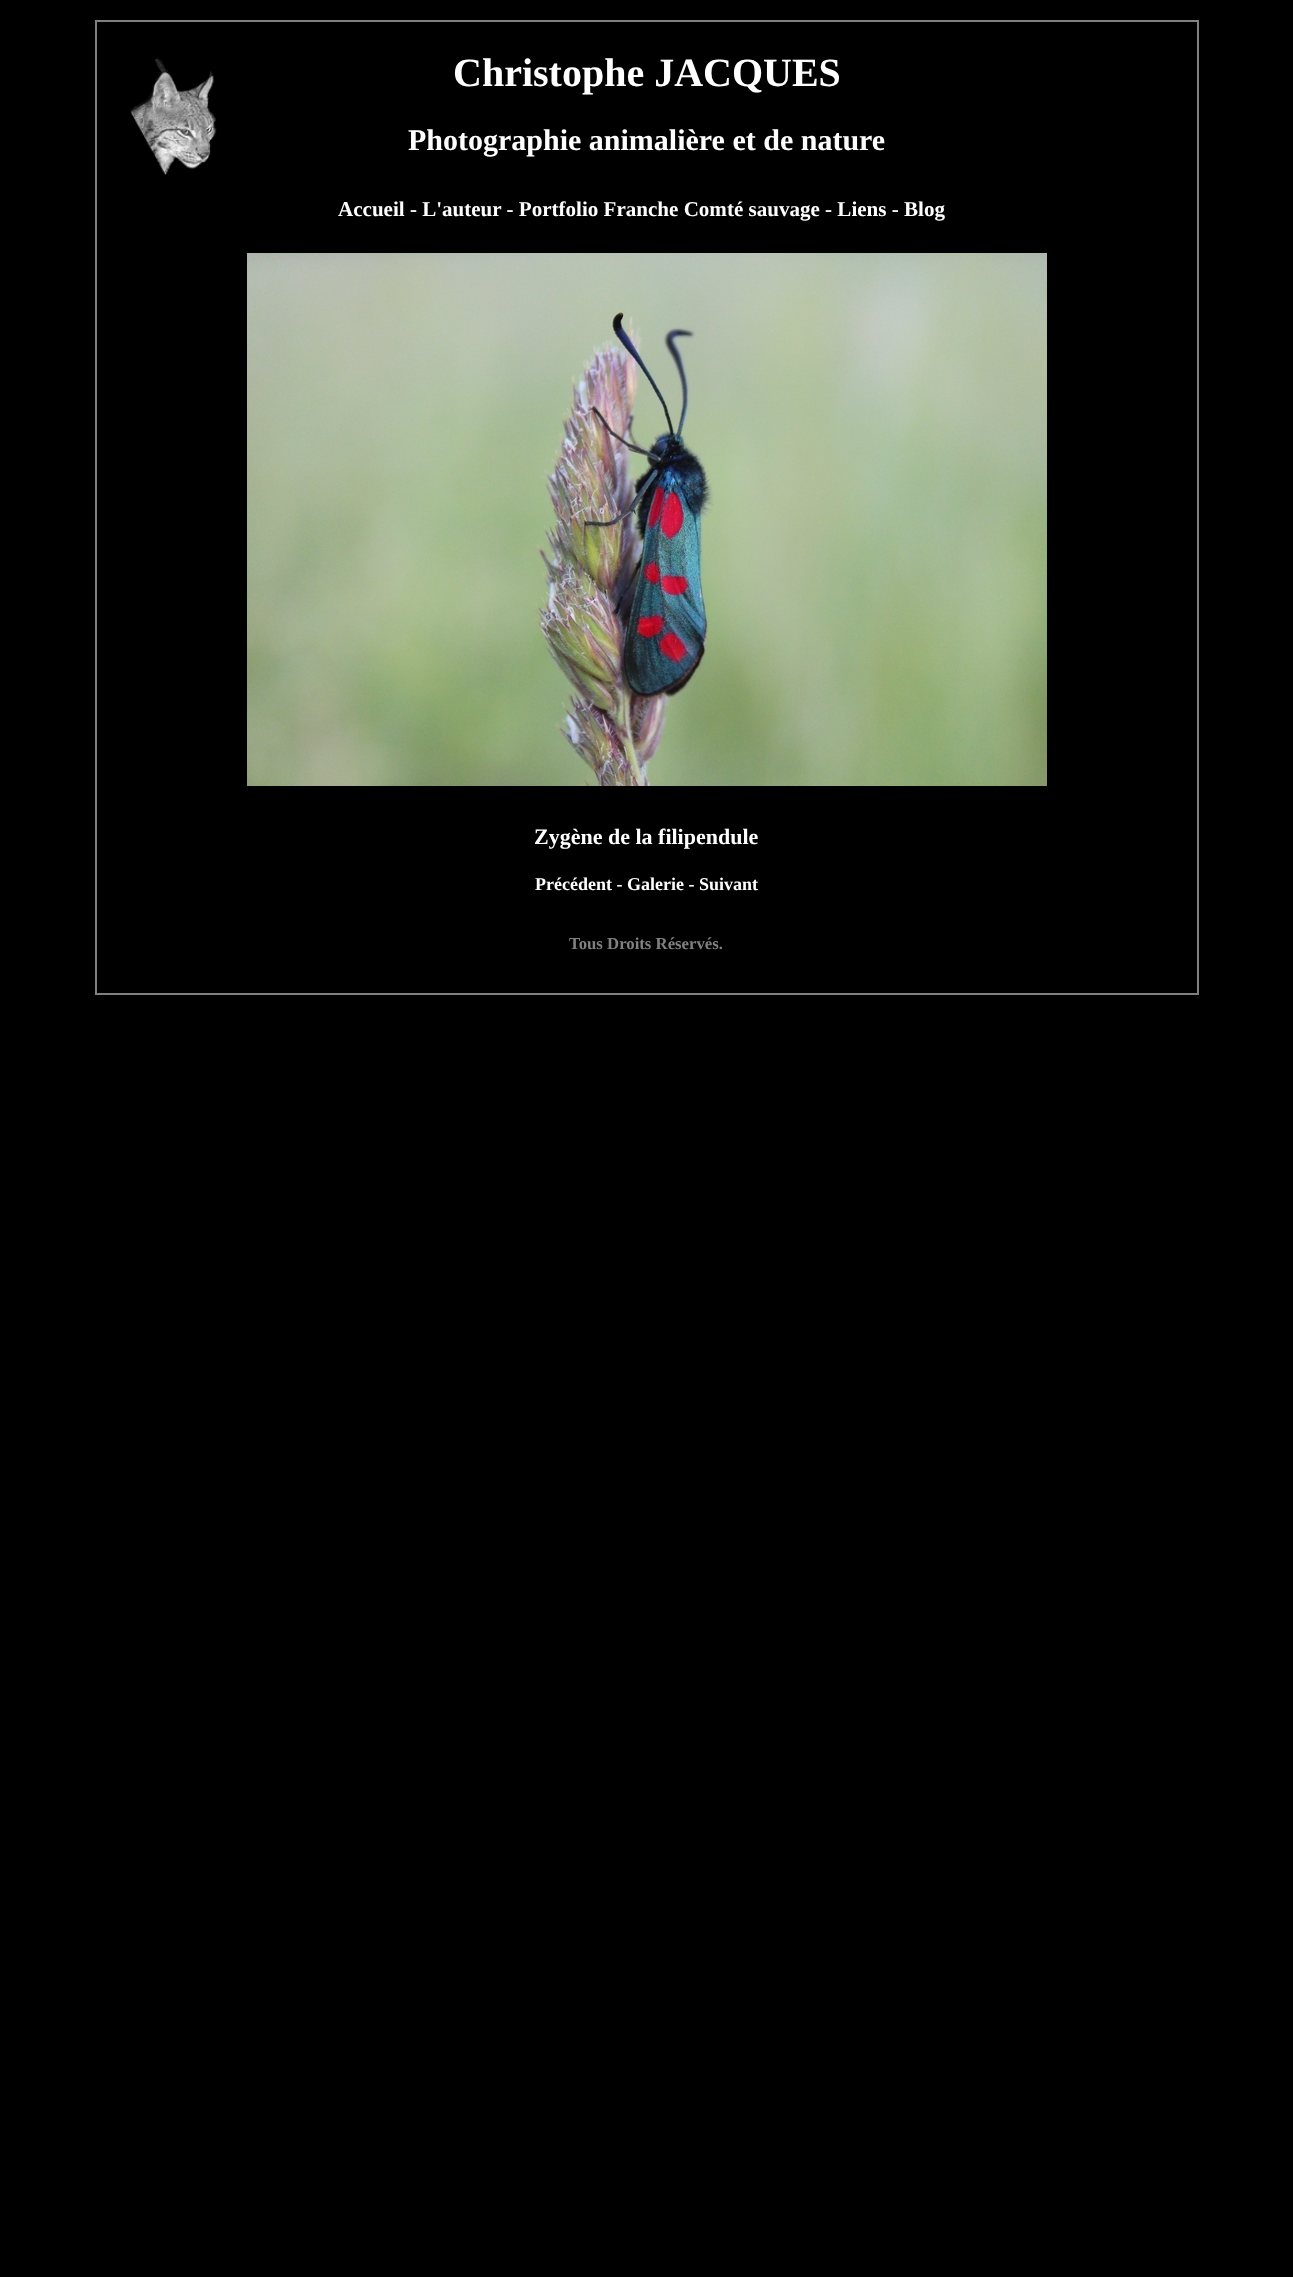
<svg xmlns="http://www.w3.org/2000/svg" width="1293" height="2277">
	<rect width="100%" height="100%" fill="#000000" />
	<rect x="96" y="21" width="1102" height="973" fill="none" stroke="#808080" stroke-width="2" />
	<image x="130" y="58" width="87" height="117" href="assets/img1.png" />
	<text x="453" y="86" font-family="Liberation Serif" font-size="40" font-weight="700" fill="#FFFFFF">Christophe JACQUES</text>
	<text x="408" y="150" font-family="Liberation Serif" font-size="30" font-weight="700" fill="#FFFFFF">Photographie animalière et de nature</text>
	<text x="338" y="216" font-family="Liberation Serif" font-size="21.05" font-weight="700" fill="#FFFFFF">Accueil - L'auteur - Portfolio Franche Comté sauvage - Liens - Blog</text>
	<image x="247" y="253" width="800" height="533" href="assets/img2.png" />
	<text x="534" y="844" font-family="Liberation Serif" font-size="22" font-weight="700" fill="#FFFFFF">Zygène de la filipendule</text>
	<text x="535" y="890" font-family="Liberation Serif" font-size="18" font-weight="700" fill="#FFFFFF">Précédent - Galerie - Suivant</text>
	<text x="569" y="949" font-family="Liberation Serif" font-size="16.75" font-weight="700" fill="#808080">Tous Droits Réservés.</text>
</svg>
